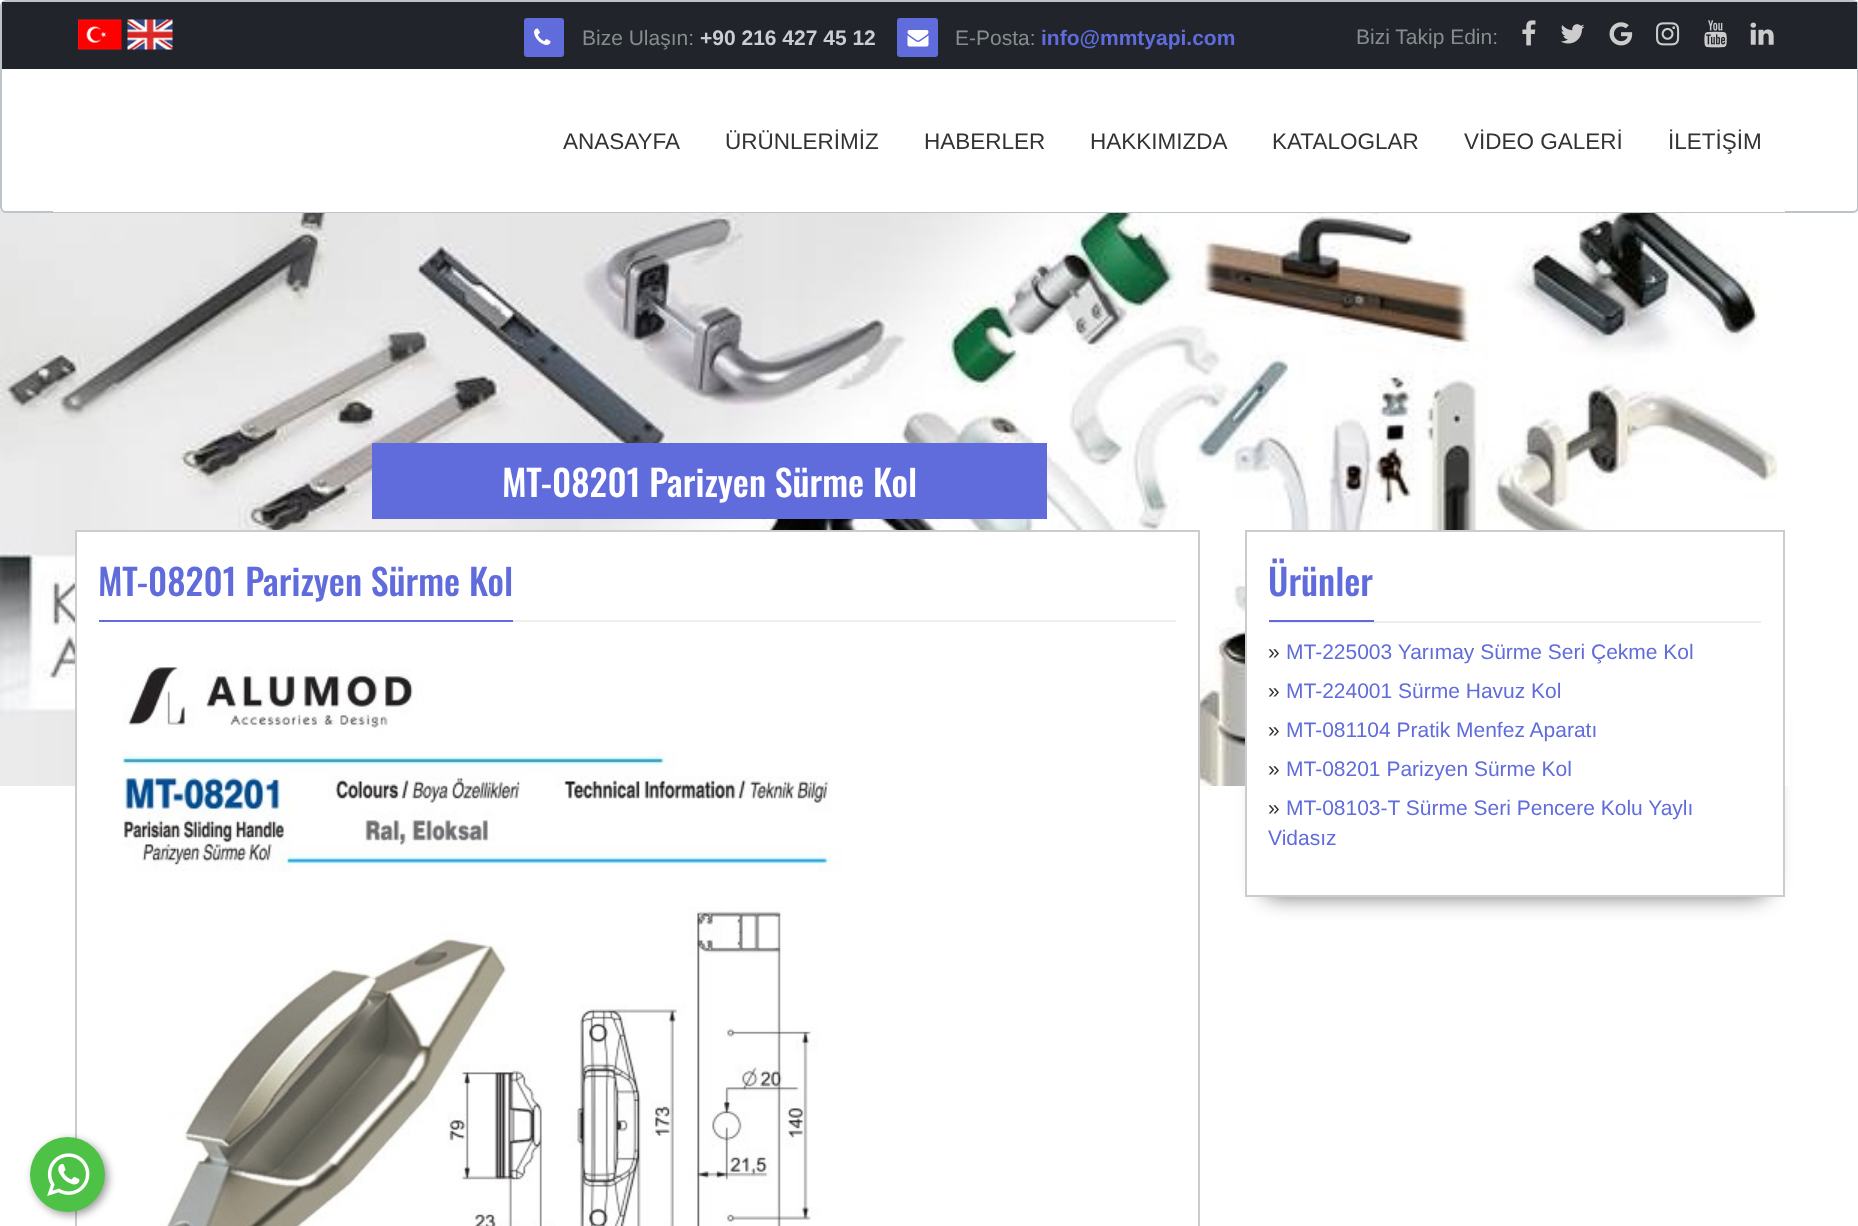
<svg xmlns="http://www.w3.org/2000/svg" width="1858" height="1226">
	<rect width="100%" height="100%" fill="#FFFFFF" />
	<rect x="1262" y="713" width="507" height="183" rx="15" fill="#000000" fill-opacity="0.6" filter="blur(11px)" />
	<image x="0" y="210" width="1790" height="576" href="assets/img11.png" />
	<rect x="1" y="1" width="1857" height="211" rx="5" fill="#FFFFFF" stroke="#BDC4C9" stroke-width="2" />
	<rect x="2" y="2" width="1855" height="67" fill="#21252B" />
	<image x="78" y="19" width="44" height="31" href="assets/img1.png" />
	<image x="127" y="19" width="46" height="31" href="assets/img2.png" />
	<rect x="524" y="18" width="40" height="39" rx="3" fill="#606CDB" />
	<image x="534" y="28" width="17" height="17" href="assets/img3.png" />
	<text x="582" y="45" font-family="Liberation Sans" font-size="21" fill="#858D8E">Bize Ulaşın:</text>
	<text x="700" y="45" font-family="Liberation Sans" font-size="21" font-weight="700" fill="#CCCCD5">+90 216 427 45 12</text>
	<rect x="897" y="18" width="41" height="39" rx="3" fill="#606CDB" />
	<image x="907" y="30" width="22" height="17" href="assets/img4.png" />
	<text x="955" y="45" font-family="Liberation Sans" font-size="21" fill="#858D8E">E-Posta:</text>
	<text x="1041" y="45" font-family="Liberation Sans" font-size="21" font-weight="700" fill="#606CDB">info@mmtyapi.com</text>
	<text x="1356" y="44" font-family="Liberation Sans" font-size="21" fill="#858D8E">Bizi Takip Edin:</text>
	<image x="1522" y="20" width="14" height="26" href="assets/img5.png" />
	<image x="1560" y="24" width="25" height="20" href="assets/img6.png" />
	<image x="1609" y="22" width="24" height="24" href="assets/img7.png" />
	<image x="1656" y="22" width="24" height="24" href="assets/img8.png" />
	<image x="1704" y="20" width="23" height="28" href="assets/img9.png" />
	<image x="1750" y="22" width="24" height="23" href="assets/img10.png" />
	<rect x="53" y="211" width="1732" height="1" fill="#FFFFFF" />
	<g font-family="Liberation Sans" font-size="22.5" fill="#333333">
		<text x="563" y="149">ANASAYFA</text>
		<text x="725" y="149">ÜRÜNLERİMİZ</text>
		<text x="924" y="149">HABERLER</text>
		<text x="1090" y="149">HAKKIMIZDA</text>
		<text x="1272" y="149">KATALOGLAR</text>
		<text x="1464" y="149">VİDEO GALERİ</text>
		<text x="1668" y="149">İLETİŞİM</text>
	</g>
	<rect x="372" y="443" width="675" height="76" fill="#606CDB" />
	<text x="502" y="497" font-family="Oswald" font-size="36" font-weight="500" fill="#FFFFFF">MT-08201 Parizyen Sürme Kol</text>
	<rect x="77" y="532" width="1121" height="254" fill="#FFFFFF" />
	<rect x="76" y="531" width="1123" height="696" fill="none" stroke="#CCCCCC" stroke-width="2" />
	<rect x="513" y="620" width="663" height="2" fill="#EEEEEE" />
	<text x="98" y="596" font-family="Oswald" font-size="36" font-weight="500" fill="#606CDB">MT-08201 Parizyen Sürme Kol</text>
	<rect x="99" y="620" width="414" height="2" fill="#606CDB" />
	<image x="121" y="667" width="722" height="559" href="assets/img12.png" />
	<rect x="1246" y="531" width="538" height="365" fill="#FFFFFF" stroke="#CCCCCC" stroke-width="2" />
	<rect x="1269" y="621" width="492" height="2" fill="#EEEEEE" />
	<text x="1268" y="596" font-family="Oswald" font-size="36" font-weight="500" fill="#606CDB">Ürünler</text>
	<rect x="1269" y="620" width="105" height="2" fill="#606CDB" />
	<text x="1268" y="659" font-family="Liberation Sans" font-size="21" fill="#333333">»</text>
	<text x="1286" y="659" font-family="Liberation Sans" font-size="21" fill="#606CDB">MT-225003 Yarımay Sürme Seri Çekme Kol</text>
	<text x="1268" y="698" font-family="Liberation Sans" font-size="21" fill="#333333">»</text>
	<text x="1286" y="698" font-family="Liberation Sans" font-size="21" fill="#606CDB">MT-224001 Sürme Havuz Kol</text>
	<text x="1268" y="737" font-family="Liberation Sans" font-size="21" fill="#333333">»</text>
	<text x="1286" y="737" font-family="Liberation Sans" font-size="21" fill="#606CDB">MT-081104 Pratik Menfez Aparatı</text>
	<text x="1268" y="776" font-family="Liberation Sans" font-size="21" fill="#333333">»</text>
	<text x="1286" y="776" font-family="Liberation Sans" font-size="21" fill="#606CDB">MT-08201 Parizyen Sürme Kol</text>
	<text x="1268" y="815" font-family="Liberation Sans" font-size="21" fill="#333333">»</text>
	<g font-family="Liberation Sans" font-size="21" fill="#606CDB">
		<text x="1286" y="815">MT-08103-T Sürme Seri Pencere Kolu Yaylı</text>
		<text x="1268" y="845">Vidasız</text>
	</g>
	<rect x="33" y="1140" width="75" height="75" rx="37.5" fill="#000000" fill-opacity="0.4" filter="blur(4.5px)" />
	<circle cx="67.5" cy="1174.5" r="37.5" fill="#4DC247" />
	<image x="47" y="1153" width="43" height="43" href="assets/img13.png" />
</svg>
